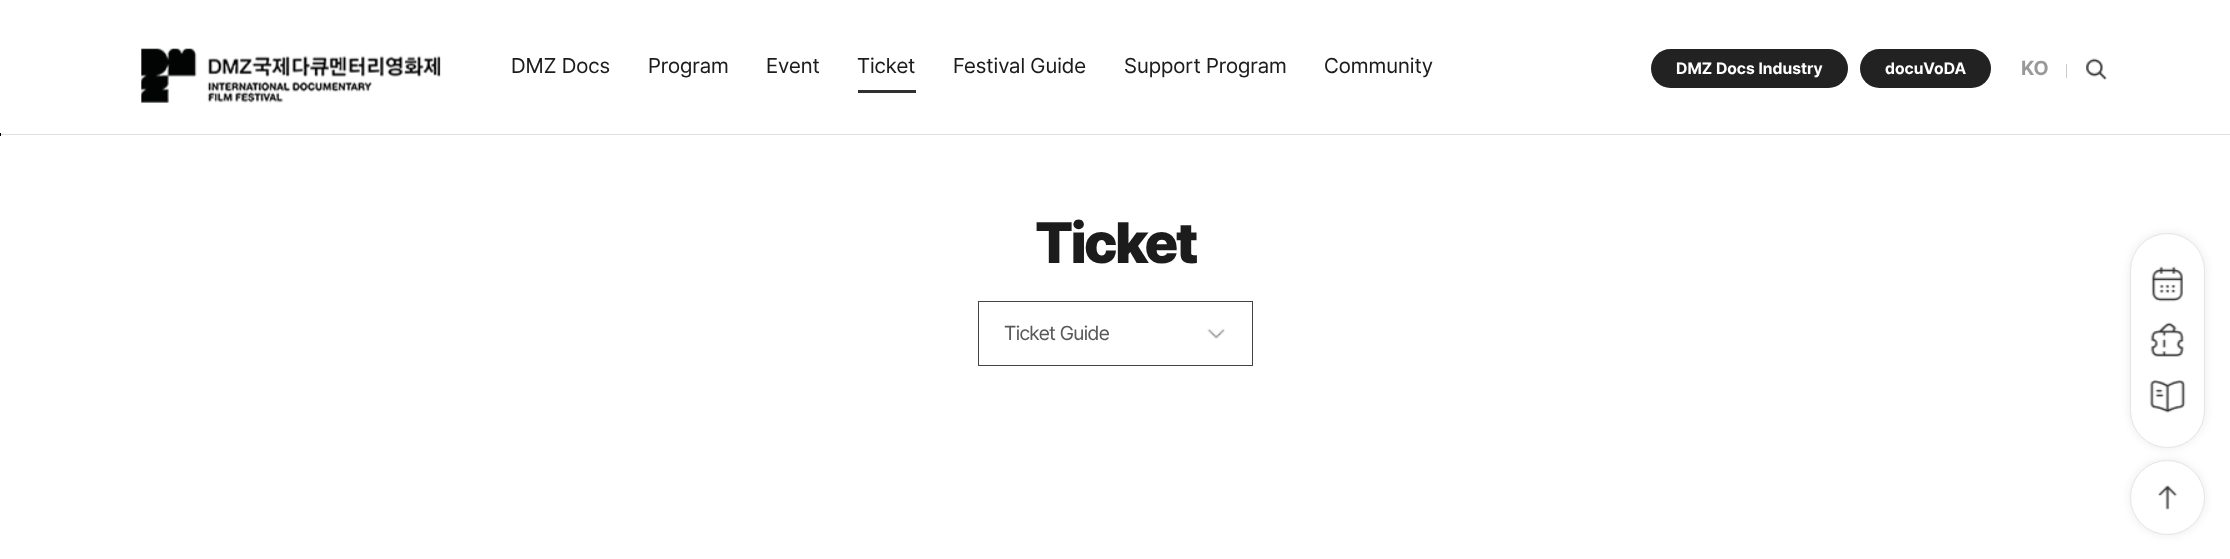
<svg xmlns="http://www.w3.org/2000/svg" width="2230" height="559">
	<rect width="100%" height="100%" fill="#FFFFFF" />
	<rect x="0" y="134" width="2230" height="1" fill="#E0E0E0" />
	<image x="141" y="48" width="300" height="55" href="assets/img1.png" />
	<g font-family="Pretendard" font-size="21.25" fill="#1C1C1C">
		<text x="511" y="73">DMZ Docs</text>
		<text x="648" y="73">Program</text>
		<text x="766" y="73">Event</text>
	</g>
	<rect x="858" y="90" width="58" height="3" fill="#303030" />
	<g font-family="Pretendard" font-size="21.25" fill="#1C1C1C">
		<text x="857" y="73">Ticket</text>
		<text x="953" y="73">Festival Guide</text>
		<text x="1124" y="73">Support Program</text>
		<text x="1324" y="73">Community</text>
	</g>
	<rect x="1651" y="49" width="197" height="39" rx="19.5" fill="#222222" />
	<text x="1676" y="74" font-family="Pretendard" font-size="16.25" font-weight="700" fill="#FFFFFF">DMZ Docs Industry</text>
	<rect x="1860" y="49" width="131" height="39" rx="19.5" fill="#222222" />
	<text x="1885" y="74" font-family="Pretendard" font-size="16.25" font-weight="700" fill="#FFFFFF">docuVoDA</text>
	<text x="2021" y="75" font-family="Pretendard" font-size="20" font-weight="700" fill="#999999">KO</text>
	<rect x="2066" y="64" width="1" height="14" fill="#CCCCCC" />
	<image x="2086" y="58" width="21" height="22" href="assets/img2.png" />
	<rect x="0" y="133" width="1" height="3" fill="#000000" />
	<text x="1035" y="263" font-family="Pretendard" font-size="57.5" font-weight="900" letter-spacing="-2.75" fill="#1C1C1C">Ticket</text>
	<image x="1207" y="328" width="18" height="11" href="assets/img3.png" />
	<rect x="978.5" y="301.5" width="274" height="64" fill="none" stroke="#444444" />
	<text x="1004" y="340" font-family="Pretendard" font-size="20" letter-spacing="-0.6" fill="#595959">Ticket Guide</text>
	<rect x="2130" y="233" width="75" height="215" rx="37.5" fill="#000000" fill-opacity="0.08" filter="blur(5px)" />
	<rect x="2130.5" y="233.5" width="74" height="214" rx="37" fill="#FFFFFF" stroke="#E5E5E5" />
	<image x="2151" y="266" width="32" height="36" href="assets/img4.png" />
	<image x="2150" y="322" width="35" height="35" href="assets/img5.png" />
	<image x="2149" y="380" width="37" height="33" href="assets/img6.png" />
	<rect x="2130" y="460" width="75" height="75" rx="37.5" fill="#000000" fill-opacity="0.08" filter="blur(5px)" />
	<circle cx="2167.5" cy="497.5" r="37" fill="#FFFFFF" stroke="#E5E5E5" />
	<image x="2158" y="485" width="19" height="25" href="assets/img7.png" />
</svg>
